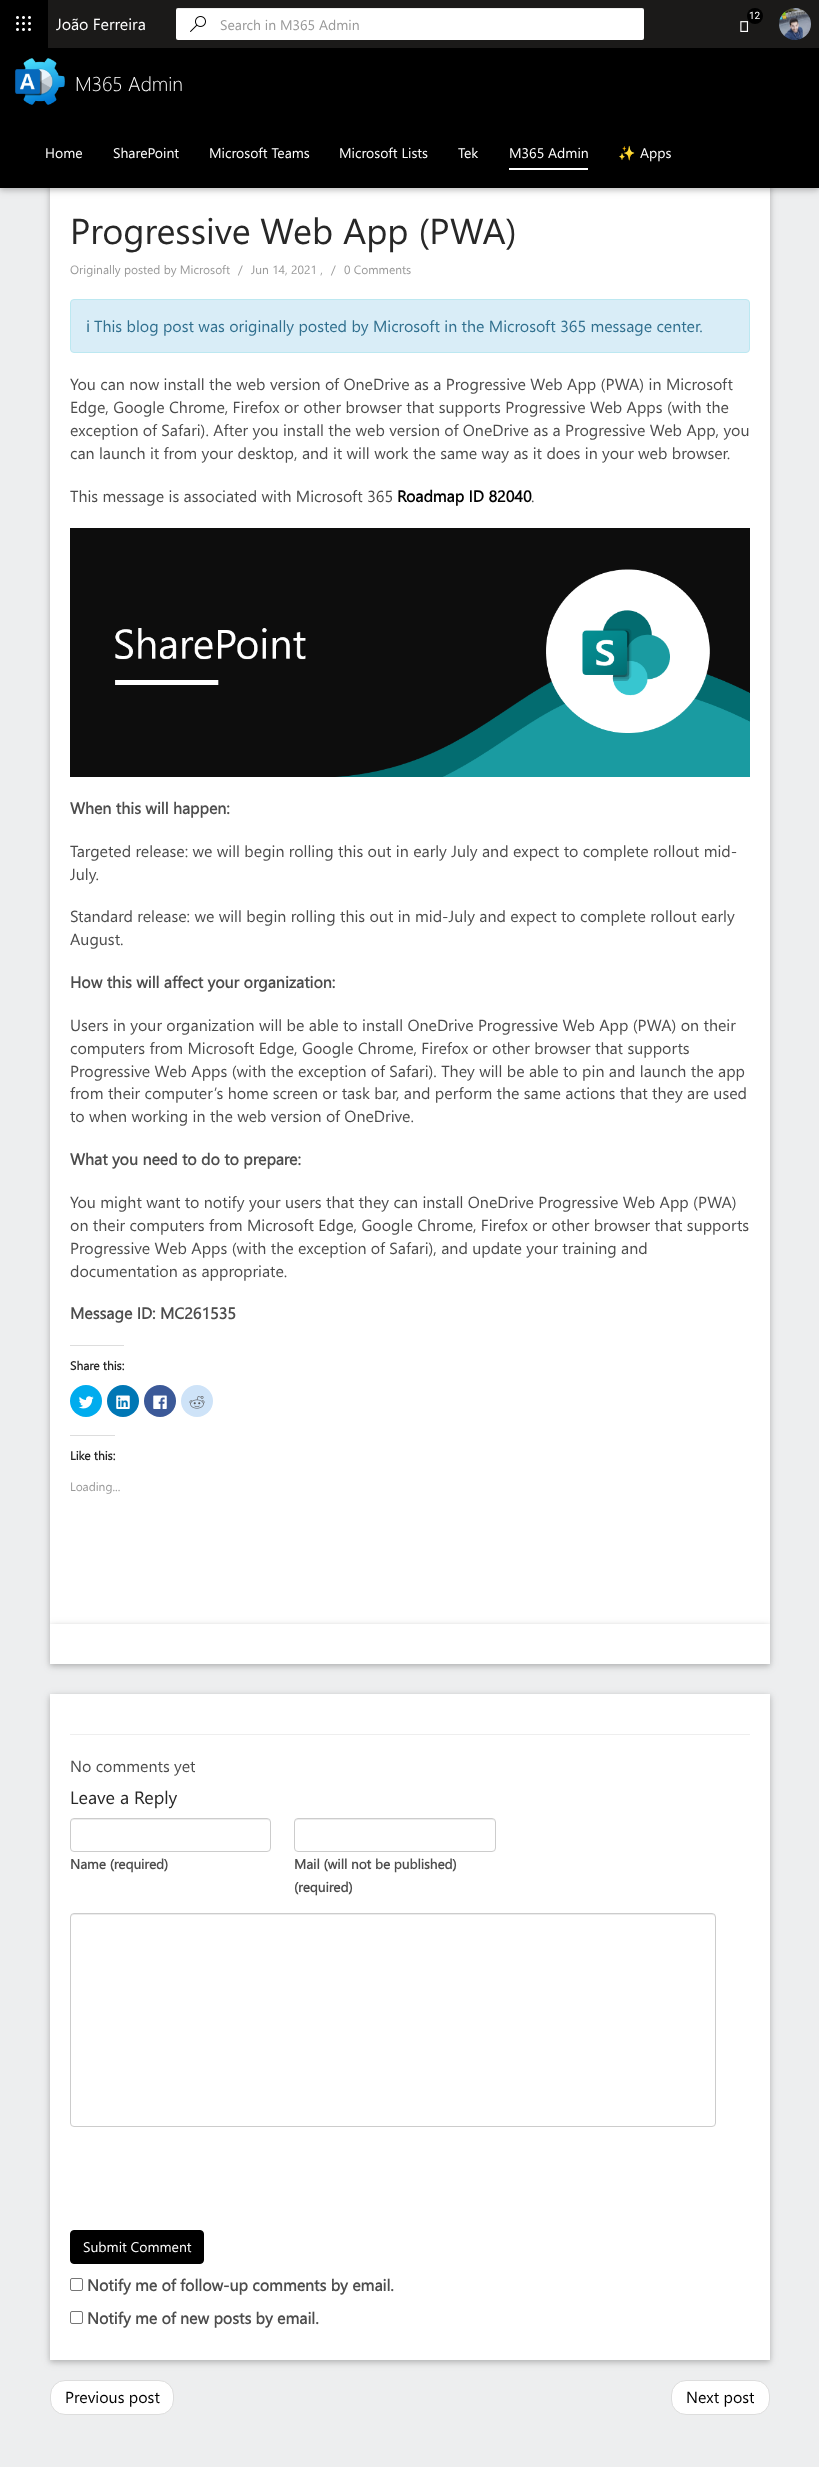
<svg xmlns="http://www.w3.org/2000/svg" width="819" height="2467">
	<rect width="100%" height="100%" fill="#EDEEEF" />
	<rect x="50" y="147" width="720" height="1479" fill="#000000" fill-opacity="0.12" filter="blur(5px)" />
	<rect x="50" y="147" width="720" height="1479" fill="#000000" fill-opacity="0.16" filter="blur(2.5px)" />
	<rect x="50" y="188" width="720" height="1436" fill="#FFFFFF" />
	<rect x="0" y="2" width="819" height="188" fill="#000000" fill-opacity="0.12" filter="blur(5px)" />
	<rect x="0" y="2" width="819" height="188" fill="#000000" fill-opacity="0.16" filter="blur(2.5px)" />
	<rect x="0" y="48" width="819" height="140" fill="#000000" />
	<rect x="48" y="0" width="771" height="48" fill="#1B1A19" />
	<rect x="0" y="0" width="48" height="48" fill="#000000" />
	<image x="16" y="16" width="15" height="15" href="assets/img1.png" />
	<image x="740" y="21" width="9" height="11" href="assets/img2.png" />
	<circle cx="755" cy="16" r="8" fill="#000000" />
	<text x="749" y="19" font-family="Roboto" font-size="10" fill="#FFFFFF">12</text>
	<image x="779" y="8" width="32" height="32" href="assets/img3.png" />
	<text x="56" y="30" font-family="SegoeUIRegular" font-size="16" fill="#FFFFFF">João Ferreira</text>
	<rect x="176" y="8" width="468" height="32" rx="2" fill="#FFFFFF" />
	<image x="190" y="16" width="16" height="16" href="assets/img4.png" />
	<path d="M178 9H642C643 9 644 10 644 11C644 10 644 8 642 8H178L176 9V11C176 10 177 9 178 9Z" fill="#000000" fill-opacity="0.07" />
	<text x="220" y="30" font-family="SegoeUIRegular" font-size="14" fill="#999999">Search in M365 Admin</text>
	<image x="15" y="58" width="50" height="47" href="assets/img5.png" />
	<text x="75" y="91" font-family="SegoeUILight" font-size="20" font-weight="300" fill="#FFFFFF">M365 Admin</text>
	<g font-family="SegoeUIRegular" font-size="14" fill="#FFFFFF">
		<text x="45" y="158">Home</text>
		<text x="113" y="158">SharePoint</text>
		<text x="209" y="158">Microsoft Teams</text>
		<text x="339" y="158">Microsoft Lists</text>
		<text x="458" y="158">Tek</text>
	</g>
	<rect x="509" y="168" width="79" height="2" fill="#FFFFFF" />
	<text x="509" y="158" font-family="SegoeUIRegular" font-size="14" fill="#FFFFFF">M365 Admin</text>
	<text x="618" y="158" font-family="Noto Color Emoji" font-size="14" fill="#FFFFFF">✨</text>
	<text x="640" y="158" font-family="SegoeUIRegular" font-size="14" fill="#FFFFFF">Apps</text>
	<text x="70" y="244" font-family="SegoeUIRegular" font-size="36" fill="#272727">Progressive Web App (PWA)</text>
	<g font-family="SegoeUIRegular" font-size="12" fill="#999999">
		<text x="70" y="274">Originally posted by Microsoft</text>
		<text x="238" y="274">/</text>
		<text x="251" y="274">Jun 14, 2021 ,</text>
		<text x="331" y="274">/</text>
		<text x="344" y="274">0 Comments</text>
	</g>
	<rect x="70.5" y="299.5" width="679" height="53" rx="3.5" fill="#D9EDF7" stroke="#BCE8F1" />
	<text x="86" y="332" font-family="Noto Sans" font-size="16" fill="#31708F">ℹ</text>
	<text x="94" y="332" font-family="SegoeUIRegular" font-size="16" fill="#31708F">This blog post was originally posted by Microsoft in the Microsoft 365 message center.</text>
	<g font-family="SegoeUIRegular" font-size="16" fill="#4D4D4D">
		<text x="70" y="390">You can now install the web version of OneDrive as a Progressive Web App (PWA) in Microsoft</text>
		<text x="70" y="413">Edge, Google Chrome, Firefox or other browser that supports Progressive Web Apps (with the</text>
		<text x="70" y="436">exception of Safari). After you install the web version of OneDrive as a Progressive Web App, you</text>
		<text x="70" y="459">can launch it from your desktop, and it will work the same way as it does in your web browser.</text>
		<text x="70" y="502">This message is associated with Microsoft 365</text>
	</g>
	<text x="397" y="502" font-family="SegoeUIRegular" font-size="16" font-weight="700" fill="#000000">Roadmap ID 82040</text>
	<text x="531" y="502" font-family="SegoeUIRegular" font-size="16" fill="#4D4D4D">.</text>
	<image x="70" y="528" width="680" height="249" href="assets/img6.png" />
	<text x="70" y="814" font-family="SegoeUIRegular" font-size="16" font-weight="700" fill="#4D4D4D">When this will happen:</text>
	<g font-family="SegoeUIRegular" font-size="16" fill="#4D4D4D">
		<text x="70" y="857">Targeted release: we will begin rolling this out in early July and expect to complete rollout mid-</text>
		<text x="70" y="880">July.</text>
		<text x="70" y="922">Standard release: we will begin rolling this out in mid-July and expect to complete rollout early</text>
		<text x="70" y="945">August.</text>
	</g>
	<text x="70" y="988" font-family="SegoeUIRegular" font-size="16" font-weight="700" fill="#4D4D4D">How this will affect your organization:</text>
	<g font-family="SegoeUIRegular" font-size="16" fill="#4D4D4D">
		<text x="70" y="1031">Users in your organization will be able to install OneDrive Progressive Web App (PWA) on their</text>
		<text x="70" y="1054">computers from Microsoft Edge, Google Chrome, Firefox or other browser that supports</text>
		<text x="70" y="1077">Progressive Web Apps (with the exception of Safari). They will be able to pin and launch the app</text>
		<text x="70" y="1099">from their computer’s home screen or task bar, and perform the same actions that they are used</text>
		<text x="70" y="1122">to when working in the web version of OneDrive.</text>
	</g>
	<text x="70" y="1165" font-family="SegoeUIRegular" font-size="16" font-weight="700" fill="#4D4D4D">What you need to do to prepare:</text>
	<g font-family="SegoeUIRegular" font-size="16" fill="#4D4D4D">
		<text x="70" y="1208">You might want to notify your users that they can install OneDrive Progressive Web App (PWA)</text>
		<text x="70" y="1231">on their computers from Microsoft Edge, Google Chrome, Firefox or other browser that supports</text>
		<text x="70" y="1254">Progressive Web Apps (with the exception of Safari), and update your training and</text>
		<text x="70" y="1277">documentation as appropriate.</text>
	</g>
	<text x="70" y="1319" font-family="SegoeUIRegular" font-size="16" font-weight="700" fill="#4D4D4D">Message ID: MC261535</text>
	<rect x="70" y="1345" width="54" height="1" fill="#DDDDDD" />
	<text x="70" y="1370" font-family="SegoeUIRegular" font-size="12" font-weight="700" fill="#272727">Share this:</text>
	<circle cx="86" cy="1401" r="16" fill="#00ACEE" />
	<image x="78" y="1396" width="16" height="13" href="assets/img7.png" />
	<circle cx="123" cy="1401" r="16" fill="#0077B5" />
	<image x="116" y="1395" width="14" height="14" href="assets/img8.png" />
	<circle cx="160" cy="1401" r="16" fill="#3B5998" />
	<image x="153" y="1395" width="14" height="14" href="assets/img9.png" />
	<circle cx="197" cy="1401" r="16" fill="#CEE3F8" />
	<image x="189" y="1396" width="16" height="13" href="assets/img10.png" />
	<rect x="70" y="1435" width="45" height="1" fill="#DDDDDD" />
	<text x="70" y="1460" font-family="SegoeUIRegular" font-size="12" font-weight="700" fill="#272727">Like this:</text>
	<text x="70" y="1491" font-family="SegoeUIRegular" font-size="12" fill="#999999">Loading...</text>
	<rect x="50" y="1626" width="720" height="40" fill="#000000" fill-opacity="0.12" filter="blur(5px)" />
	<rect x="50" y="1626" width="720" height="40" fill="#000000" fill-opacity="0.16" filter="blur(2.5px)" />
	<rect x="50" y="1624" width="720" height="40" fill="#FFFFFF" />
	<rect x="50" y="1696" width="720" height="666" fill="#000000" fill-opacity="0.12" filter="blur(5px)" />
	<rect x="50" y="1696" width="720" height="666" fill="#000000" fill-opacity="0.16" filter="blur(2.5px)" />
	<rect x="50" y="1694" width="720" height="666" fill="#FFFFFF" />
	<rect x="70" y="1734" width="680" height="1" fill="#EEEEEE" />
	<text x="70" y="1772" font-family="SegoeUIRegular" font-size="16" fill="#4D4D4D">No comments yet</text>
	<text x="70" y="1804" font-family="SegoeUIRegular" font-size="18" fill="#272727">Leave a Reply</text>
	<path d="M74 1820H267C269 1820 270 1821 270 1823C270 1821 269 1819 267 1819H74C72 1819 71 1821 71 1823C71 1821 72 1820 74 1820Z" fill="#ECECEC" />
	<rect x="70.5" y="1818.5" width="200" height="33" rx="3.5" fill="none" stroke="#CCCCCC" />
	<text x="70" y="1869" font-family="SegoeUIRegular" font-size="13.6" font-weight="700" fill="#4D4D4D">Name (required)</text>
	<path d="M298 1820H492C494 1820 495 1821 495 1823C495 1821 494 1819 492 1819H298C296 1819 295 1821 295 1823C295 1821 296 1820 298 1820Z" fill="#ECECEC" />
	<rect x="294.5" y="1818.5" width="201" height="33" rx="3.5" fill="none" stroke="#CCCCCC" />
	<g font-family="SegoeUIRegular" font-size="13.6" font-weight="700" fill="#4D4D4D">
		<text x="294" y="1869">Mail (will not be published)</text>
		<text x="294" y="1892">(required)</text>
	</g>
	<path d="M74 1915H712C714 1915 715 1916 715 1918V1917C715 1915 714 1914 712 1914H74C72 1914 71 1915 71 1917V1918C71 1916 72 1915 74 1915Z" fill="#ECECEC" />
	<rect x="70.5" y="1913.5" width="645" height="213" rx="3.5" fill="none" stroke="#CCCCCC" />
	<rect x="70.5" y="2230.5" width="133" height="33" rx="3.5" fill="#000000" stroke="#000000" />
	<text x="83" y="2252" font-family="SegoeUIRegular" font-size="14" fill="#FFFFFF">Submit Comment</text>
	<rect x="70.5" y="2278.5" width="12" height="12" rx="1.5" fill="none" stroke="#767676" />
	<text x="87" y="2291" font-family="SegoeUIRegular" font-size="16" font-weight="700" fill="#4D4D4D">Notify me of follow-up comments by email.</text>
	<rect x="70.5" y="2311.5" width="12" height="12" rx="1.5" fill="none" stroke="#767676" />
	<text x="87" y="2324" font-family="SegoeUIRegular" font-size="16" font-weight="700" fill="#4D4D4D">Notify me of new posts by email.</text>
	<rect x="50.5" y="2380.5" width="123" height="34" rx="14.5" fill="#FFFFFF" stroke="#DDDDDD" />
	<text x="65" y="2403" font-family="SegoeUIRegular" font-size="16" fill="#000000">Previous post</text>
	<rect x="671.5" y="2380.5" width="98" height="34" rx="14.5" fill="#FFFFFF" stroke="#DDDDDD" />
	<text x="686" y="2403" font-family="SegoeUIRegular" font-size="16" fill="#000000">Next post</text>
</svg>
